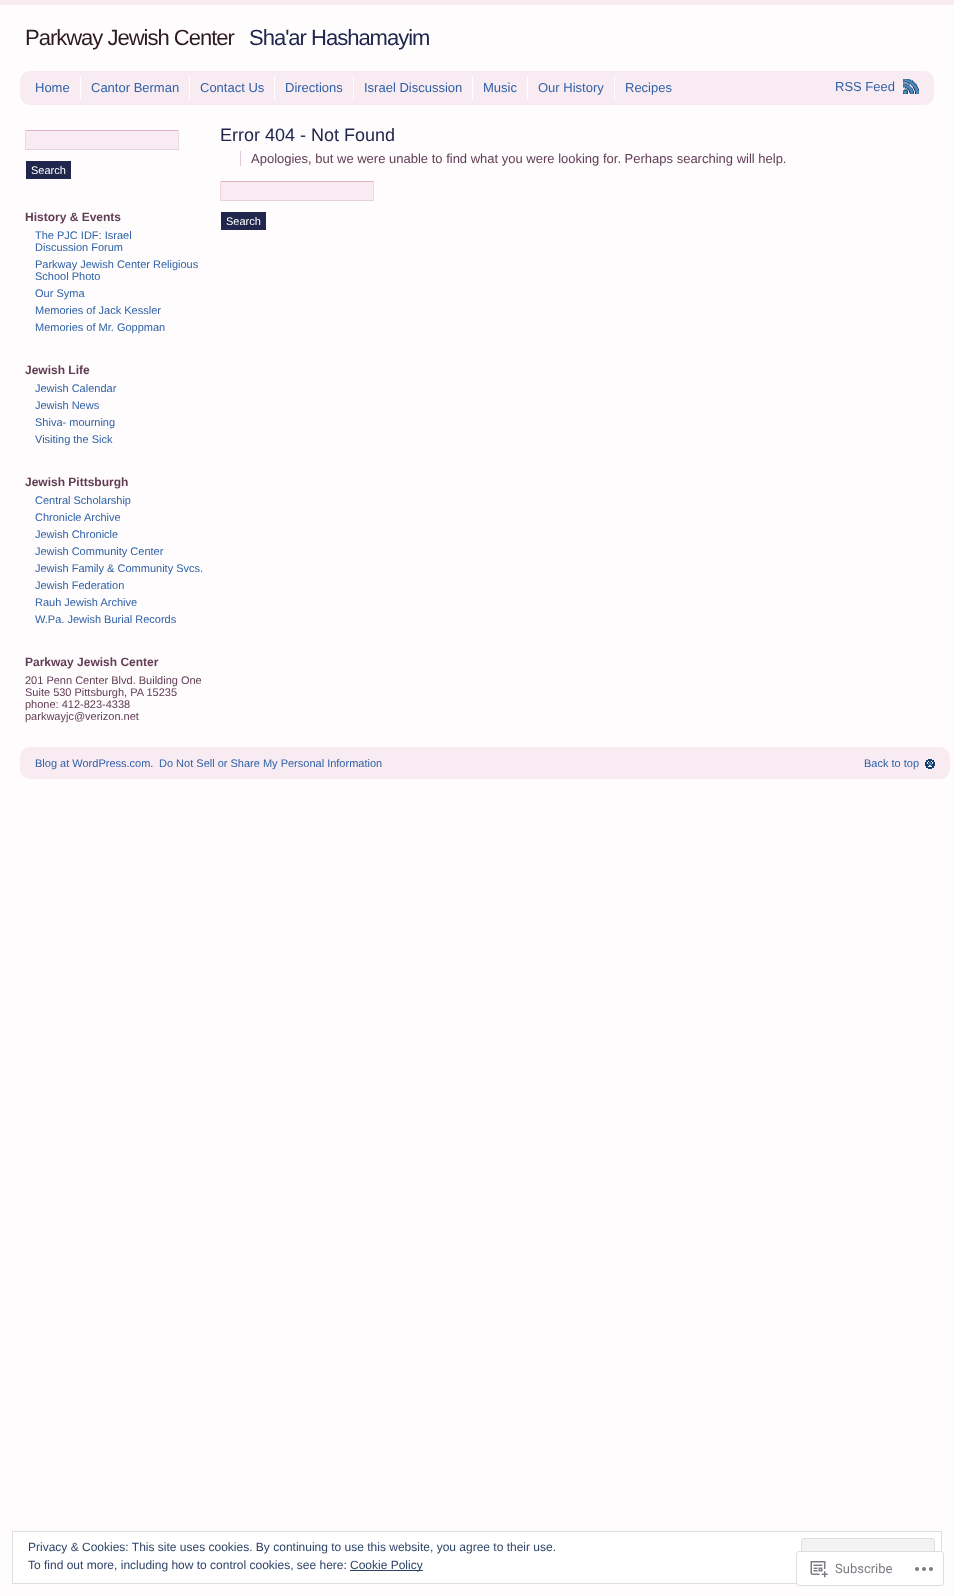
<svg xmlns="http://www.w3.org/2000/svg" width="954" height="1596">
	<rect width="100%" height="100%" fill="#FEFCFD" />
	<rect x="0" y="0" width="954" height="5" fill="#F8EBF2" />
	<text x="25" y="45" font-family="Liberation Sans" font-size="22" letter-spacing="-1" fill="#2C1A21">Parkway Jewish Center</text>
	<text x="249" y="45" font-family="Liberation Sans" font-size="22" letter-spacing="-1" fill="#21264C">Sha'ar Hashamayim</text>
	<rect x="20" y="71" width="914" height="34" rx="10" fill="#F8EBF2" />
	<rect x="80" y="76" width="1" height="24" fill="#FFFFFF" />
	<text x="35" y="92" font-family="Liberation Sans" font-size="13" fill="#3061A6">Home</text>
	<rect x="189" y="76" width="1" height="24" fill="#FFFFFF" />
	<text x="91" y="92" font-family="Liberation Sans" font-size="13" fill="#3061A6">Cantor Berman</text>
	<rect x="274" y="76" width="1" height="24" fill="#FFFFFF" />
	<text x="200" y="92" font-family="Liberation Sans" font-size="13" fill="#3061A6">Contact Us</text>
	<rect x="353" y="76" width="1" height="24" fill="#FFFFFF" />
	<text x="285" y="92" font-family="Liberation Sans" font-size="13" fill="#3061A6">Directions</text>
	<rect x="472" y="76" width="1" height="24" fill="#FFFFFF" />
	<text x="364" y="92" font-family="Liberation Sans" font-size="13" fill="#3061A6">Israel Discussion</text>
	<rect x="527" y="76" width="1" height="24" fill="#FFFFFF" />
	<text x="483" y="92" font-family="Liberation Sans" font-size="13" fill="#3061A6">Music</text>
	<rect x="614" y="76" width="1" height="24" fill="#FFFFFF" />
	<g font-family="Liberation Sans" font-size="13" fill="#3061A6">
		<text x="538" y="92">Our History</text>
		<text x="625" y="92">Recipes</text>
		<text x="835" y="91">RSS Feed</text>
	</g>
	<image x="903" y="79" width="16" height="15" href="assets/img1.png" />
	<rect x="26" y="131" width="152" height="18" fill="#F8EBF2" />
	<rect x="25" y="130" width="154" height="1" fill="#E4AEC9" />
	<rect x="178" y="130" width="1" height="20" fill="#EADBE6" />
	<rect x="25" y="149" width="154" height="1" fill="#E4D2E0" />
	<rect x="25" y="130" width="1" height="20" fill="#F0D4E2" />
	<rect x="26" y="161" width="45" height="18" fill="#21264C" />
	<text x="31" y="174" font-family="Liberation Sans" font-size="11" fill="#FFFFFF">Search</text>
	<text x="25" y="221" font-family="Liberation Sans" font-size="12" font-weight="700" fill="#613C53">History &amp; Events</text>
	<g font-family="Liberation Sans" font-size="11" fill="#3061A6">
		<text x="35" y="239">The PJC IDF: Israel</text>
		<text x="35" y="251">Discussion Forum</text>
		<text x="35" y="268">Parkway Jewish Center Religious</text>
		<text x="35" y="280">School Photo</text>
		<text x="35" y="297">Our Syma</text>
		<text x="35" y="314">Memories of Jack Kessler</text>
		<text x="35" y="331">Memories of Mr. Goppman</text>
	</g>
	<text x="25" y="374" font-family="Liberation Sans" font-size="12" font-weight="700" fill="#613C53">Jewish Life</text>
	<g font-family="Liberation Sans" font-size="11" fill="#3061A6">
		<text x="35" y="392">Jewish Calendar</text>
		<text x="35" y="409">Jewish News</text>
		<text x="35" y="426">Shiva- mourning</text>
		<text x="35" y="443">Visiting the Sick</text>
	</g>
	<text x="25" y="486" font-family="Liberation Sans" font-size="12" font-weight="700" fill="#613C53">Jewish Pittsburgh</text>
	<g font-family="Liberation Sans" font-size="11" fill="#3061A6">
		<text x="35" y="504">Central Scholarship</text>
		<text x="35" y="521">Chronicle Archive</text>
		<text x="35" y="538">Jewish Chronicle</text>
		<text x="35" y="555">Jewish Community Center</text>
		<text x="35" y="572">Jewish Family &amp; Community Svcs.</text>
		<text x="35" y="589">Jewish Federation</text>
		<text x="35" y="606">Rauh Jewish Archive</text>
		<text x="35" y="623">W.Pa. Jewish Burial Records</text>
	</g>
	<text x="25" y="666" font-family="Liberation Sans" font-size="12" font-weight="700" fill="#613C53">Parkway Jewish Center</text>
	<g font-family="Liberation Sans" font-size="11" fill="#613C53">
		<text x="25" y="684">201 Penn Center Blvd. Building One</text>
		<text x="25" y="696">Suite 530 Pittsburgh, PA 15235</text>
		<text x="25" y="708">phone: 412-823-4338</text>
		<text x="25" y="720">parkwayjc@verizon.net</text>
	</g>
	<text x="220" y="141" font-family="Liberation Sans" font-size="18" fill="#21264C">Error 404 - Not Found</text>
	<rect x="240" y="151" width="1" height="15" fill="#DEC9D8" />
	<text x="251" y="163" font-family="Liberation Sans" font-size="13" fill="#613C53">Apologies, but we were unable to find what you were looking for. Perhaps searching will help.</text>
	<rect x="221" y="182" width="152" height="18" fill="#F8EBF2" />
	<rect x="220" y="181" width="154" height="1" fill="#E4AEC9" />
	<rect x="373" y="181" width="1" height="20" fill="#EADBE6" />
	<rect x="220" y="200" width="154" height="1" fill="#E4D2E0" />
	<rect x="220" y="181" width="1" height="20" fill="#F0D4E2" />
	<rect x="221" y="212" width="45" height="18" fill="#21264C" />
	<text x="226" y="225" font-family="Liberation Sans" font-size="11" fill="#FFFFFF">Search</text>
	<rect x="20" y="747" width="930" height="32" rx="10" fill="#F8EBF2" />
	<g font-family="Liberation Sans" font-size="11" fill="#3061A6">
		<text x="35" y="767">Blog at WordPress.com.</text>
		<text x="159" y="767">Do Not Sell or Share My Personal Information</text>
		<text x="864" y="767">Back to top</text>
	</g>
	<image x="925" y="759" width="10" height="10" href="assets/img2.png" />
	<rect x="12.5" y="1531.5" width="929" height="52" fill="#FFFFFF" stroke="#DEDEDE" />
	<text x="28" y="1551" font-family="Liberation Sans" font-size="12" fill="#2E4467">Privacy &amp; Cookies: This site uses cookies. By continuing to use this website, you agree to their use.</text>
	<rect x="801.5" y="1538.5" width="133" height="38" rx="2.5" fill="#F3F3F3" stroke="#DEDEDE" />
	<text x="28" y="1569" font-family="Liberation Sans" font-size="12" fill="#2E4467">To find out more, including how to control cookies, see here:</text>
	<rect x="350" y="1570" width="73" height="1" fill="#2E4467" />
	<text x="350" y="1569" font-family="Liberation Sans" font-size="12" fill="#2E4467">Cookie Policy</text>
	<rect x="796" y="1551" width="148" height="35" rx="3" fill="#FFFFFF" fill-opacity="0.98" />
	<rect x="796.5" y="1551.5" width="147" height="34" rx="2.5" fill="none" stroke="#DCDCDE" stroke-opacity="0.98" />
	<image x="810" y="1561" width="18" height="17" href="assets/img3.png" />
	<text x="835" y="1573" font-family="Roboto" font-size="13" fill="#7A7E84">Subscribe</text>
	<image x="915" y="1567" width="18" height="4" href="assets/img4.png" />
</svg>
